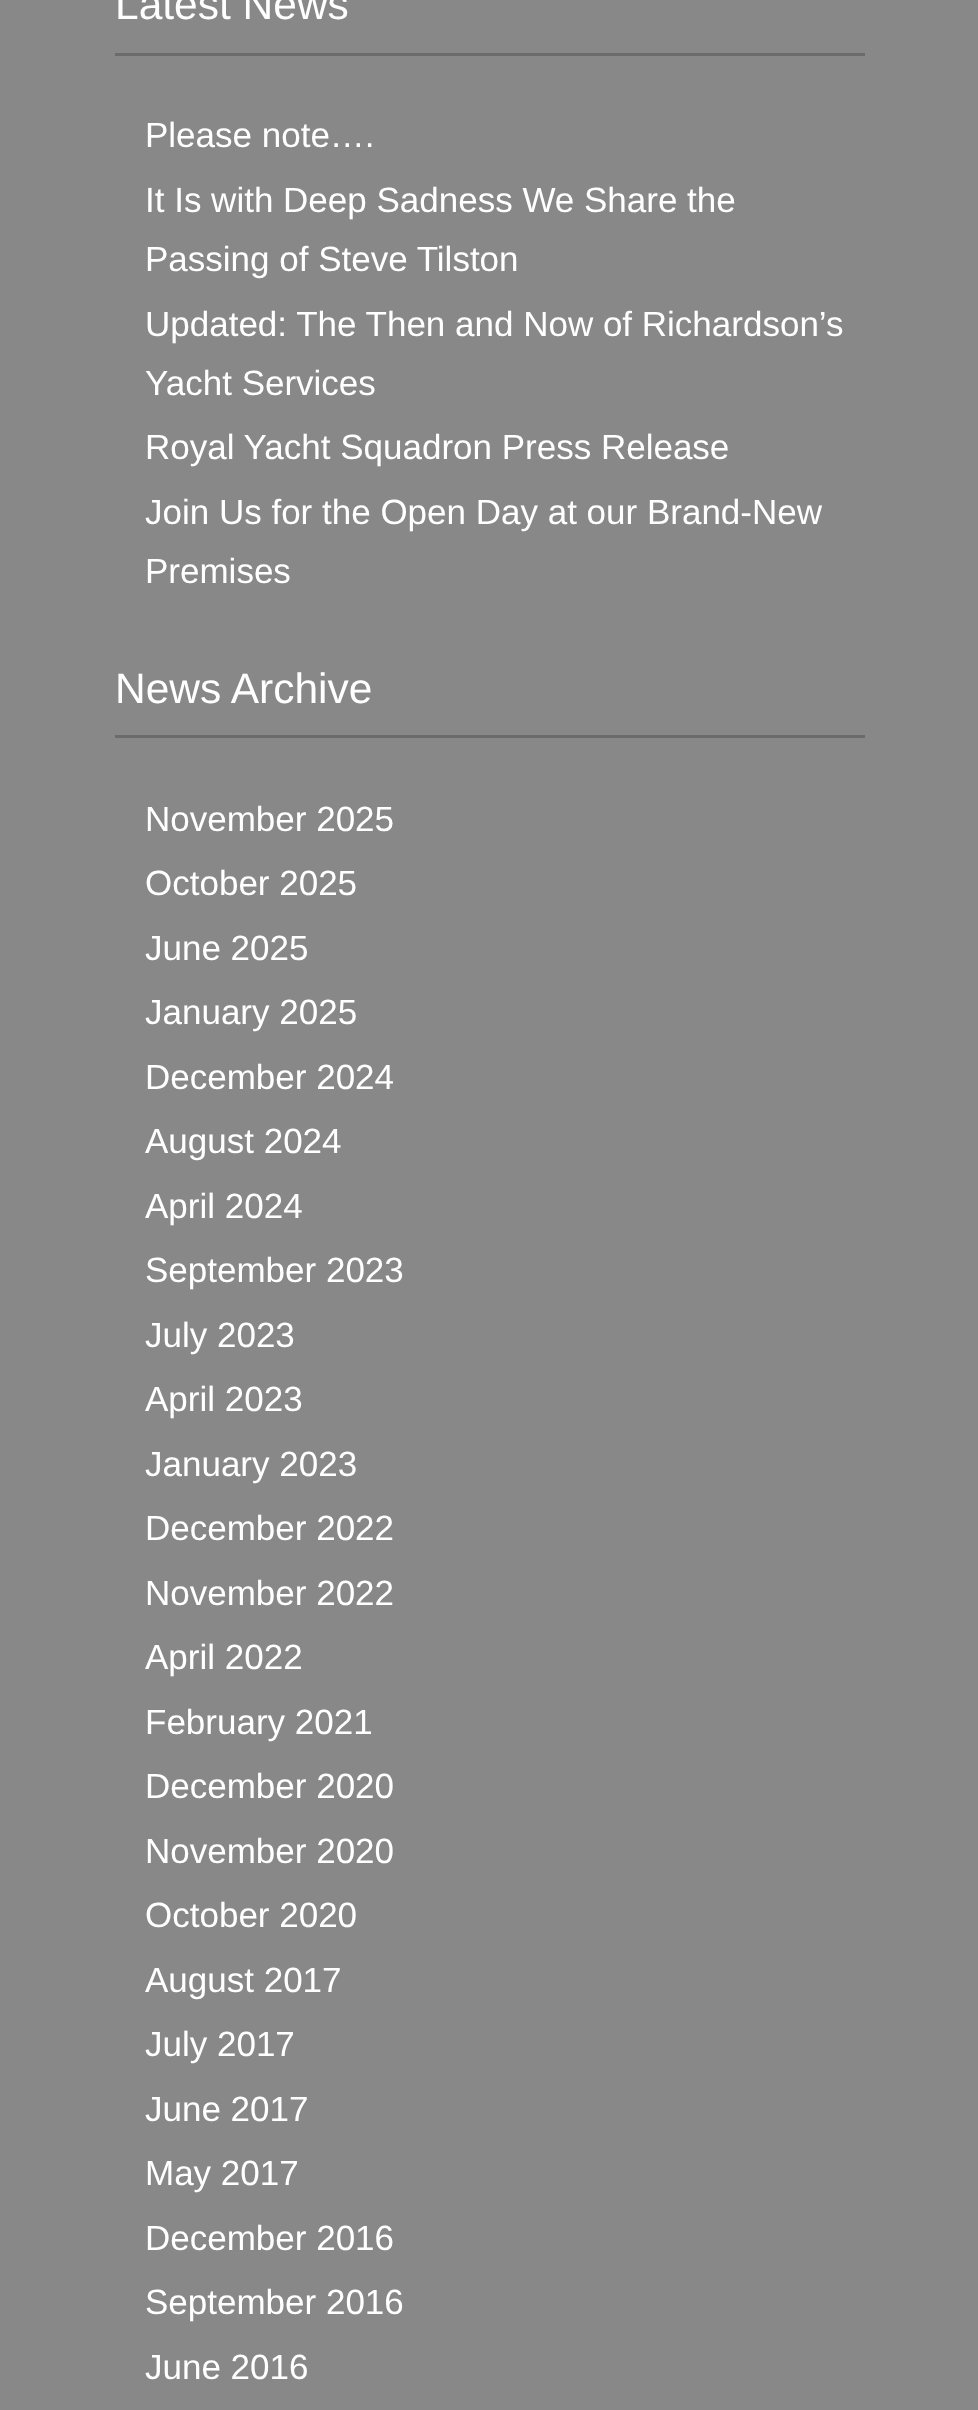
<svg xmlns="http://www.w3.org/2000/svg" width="978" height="2410">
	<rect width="100%" height="100%" fill="#888888" />
	<rect x="115" y="53" width="750" height="3" fill="#6B6B6B" />
	<text x="115" y="19" font-family="Liberation Sans" font-size="42.5" fill="#FFFFFF">Latest News</text>
	<g font-family="Liberation Sans" font-size="35" fill="#FFFFFF">
		<text x="145" y="147">Please note….</text>
		<text x="145" y="212">It Is with Deep Sadness We Share the</text>
		<text x="145" y="271">Passing of Steve Tilston</text>
		<text x="145" y="336">Updated: The Then and Now of Richardson’s</text>
		<text x="145" y="395">Yacht Services</text>
		<text x="145" y="459">Royal Yacht Squadron Press Release</text>
		<text x="145" y="524">Join Us for the Open Day at our Brand-New</text>
		<text x="145" y="583">Premises</text>
	</g>
	<rect x="115" y="735" width="750" height="3" fill="#6B6B6B" />
	<text x="115" y="703" font-family="Liberation Sans" font-size="42.5" fill="#FFFFFF">News Archive</text>
	<g font-family="Liberation Sans" font-size="35" fill="#FFFFFF">
		<text x="145" y="831">November 2025</text>
		<text x="145" y="895">October 2025</text>
		<text x="145" y="960">June 2025</text>
		<text x="145" y="1024">January 2025</text>
		<text x="145" y="1089">December 2024</text>
		<text x="145" y="1153">August 2024</text>
		<text x="145" y="1218">April 2024</text>
		<text x="145" y="1282">September 2023</text>
		<text x="145" y="1347">July 2023</text>
		<text x="145" y="1411">April 2023</text>
		<text x="145" y="1476">January 2023</text>
		<text x="145" y="1540">December 2022</text>
		<text x="145" y="1605">November 2022</text>
		<text x="145" y="1669">April 2022</text>
		<text x="145" y="1734">February 2021</text>
		<text x="145" y="1798">December 2020</text>
		<text x="145" y="1863">November 2020</text>
		<text x="145" y="1927">October 2020</text>
		<text x="145" y="1992">August 2017</text>
		<text x="145" y="2056">July 2017</text>
		<text x="145" y="2121">June 2017</text>
		<text x="145" y="2185">May 2017</text>
		<text x="145" y="2250">December 2016</text>
		<text x="145" y="2314">September 2016</text>
		<text x="145" y="2379">June 2016</text>
	</g>
</svg>
